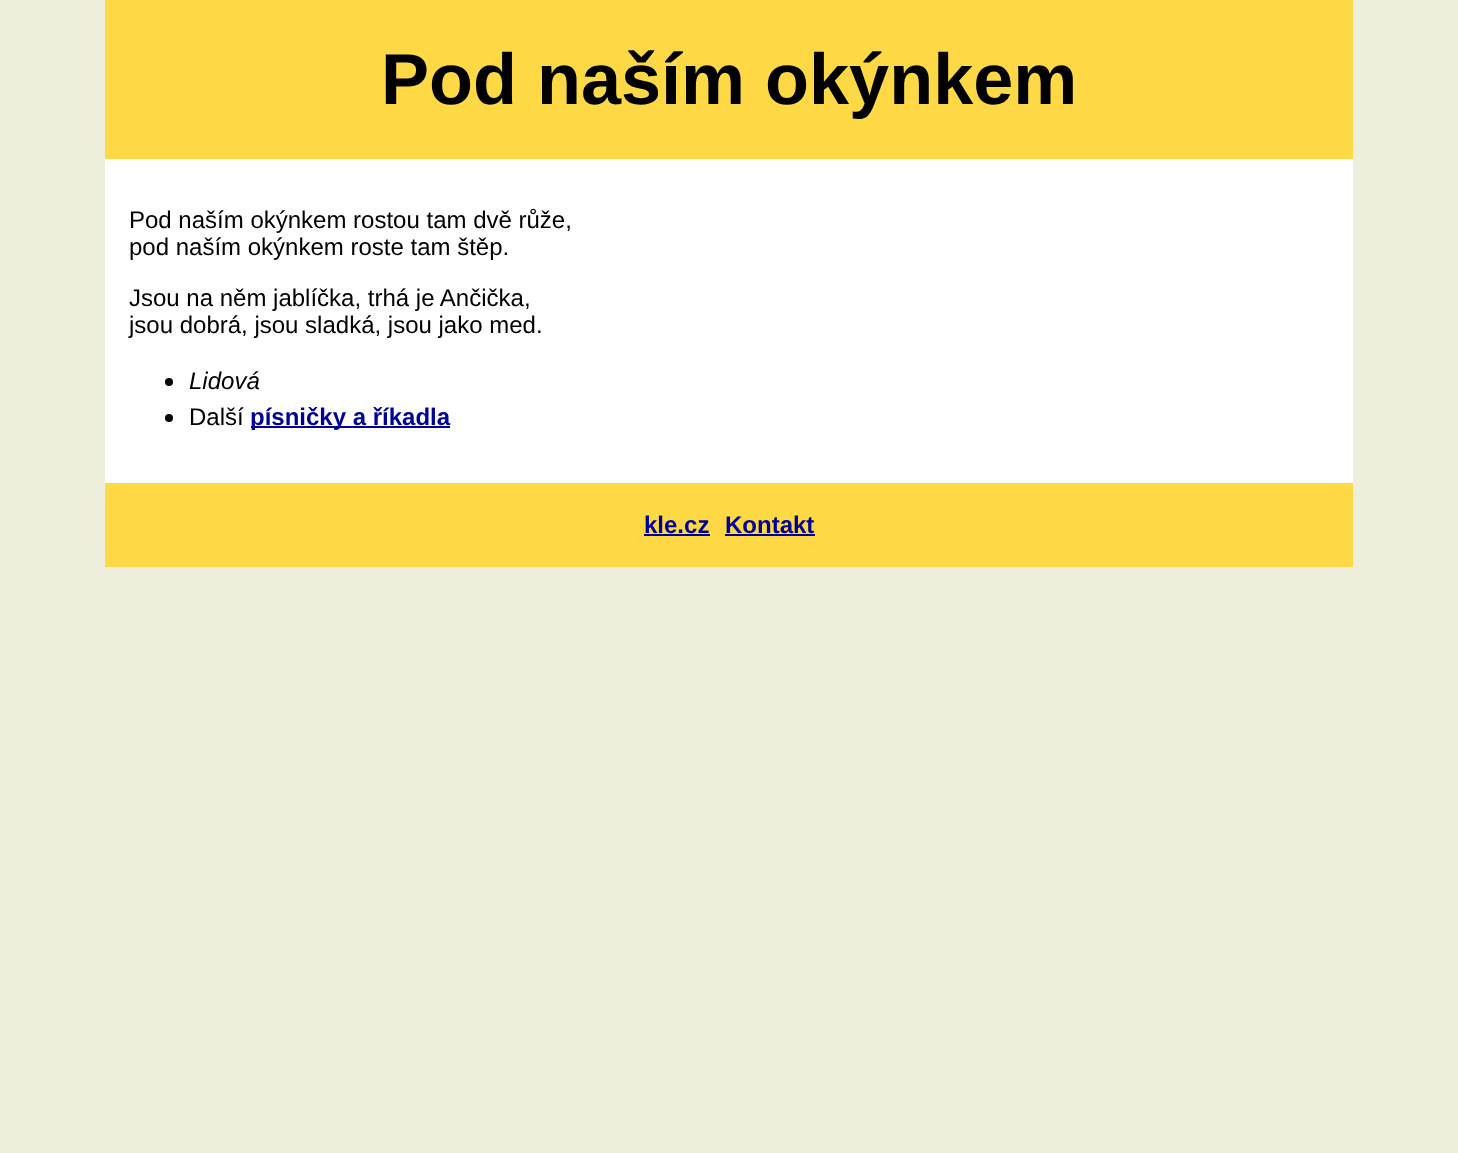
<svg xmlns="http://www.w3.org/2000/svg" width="1458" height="1153">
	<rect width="100%" height="100%" fill="#EEEEDD" />
	<rect x="105" y="0" width="1248" height="159" fill="#FED945" />
	<text x="381" y="104" font-family="Liberation Sans" font-size="72" font-weight="700" fill="#000000">Pod naším okýnkem</text>
	<rect x="105" y="159" width="1248" height="324" fill="#FFFFFF" />
	<g font-family="Liberation Sans" font-size="24" fill="#000000">
		<text x="129" y="228">Pod naším okýnkem rostou tam dvě růže,</text>
		<text x="129" y="255">pod naším okýnkem roste tam štěp.</text>
		<text x="129" y="306">Jsou na něm jablíčka, trhá je Ančička,</text>
		<text x="129" y="333">jsou dobrá, jsou sladká, jsou jako med.</text>
	</g>
	<circle cx="169" cy="382" r="4" fill="#000000" />
	<text x="189" y="389" font-family="Liberation Sans" font-size="24" font-style="italic" fill="#000000">Lidová</text>
	<circle cx="169" cy="418" r="4" fill="#000000" />
	<text x="189" y="425" font-family="Liberation Sans" font-size="24" fill="#000000">Další</text>
	<rect x="251" y="426" width="199" height="2" fill="#000099" />
	<text x="250" y="425" font-family="Liberation Sans" font-size="24" font-weight="700" fill="#000099">písničky a říkadla</text>
	<rect x="105" y="483" width="1248" height="84" fill="#FED945" />
	<text x="644" y="533" font-family="Liberation Sans" font-size="24" font-weight="700" fill="#000099">kle.cz</text>
	<rect x="644" y="534" width="66" height="2" fill="#000099" />
	<text x="725" y="533" font-family="Liberation Sans" font-size="24" font-weight="700" fill="#000099">Kontakt</text>
	<rect x="725" y="534" width="90" height="2" fill="#000099" />
</svg>
